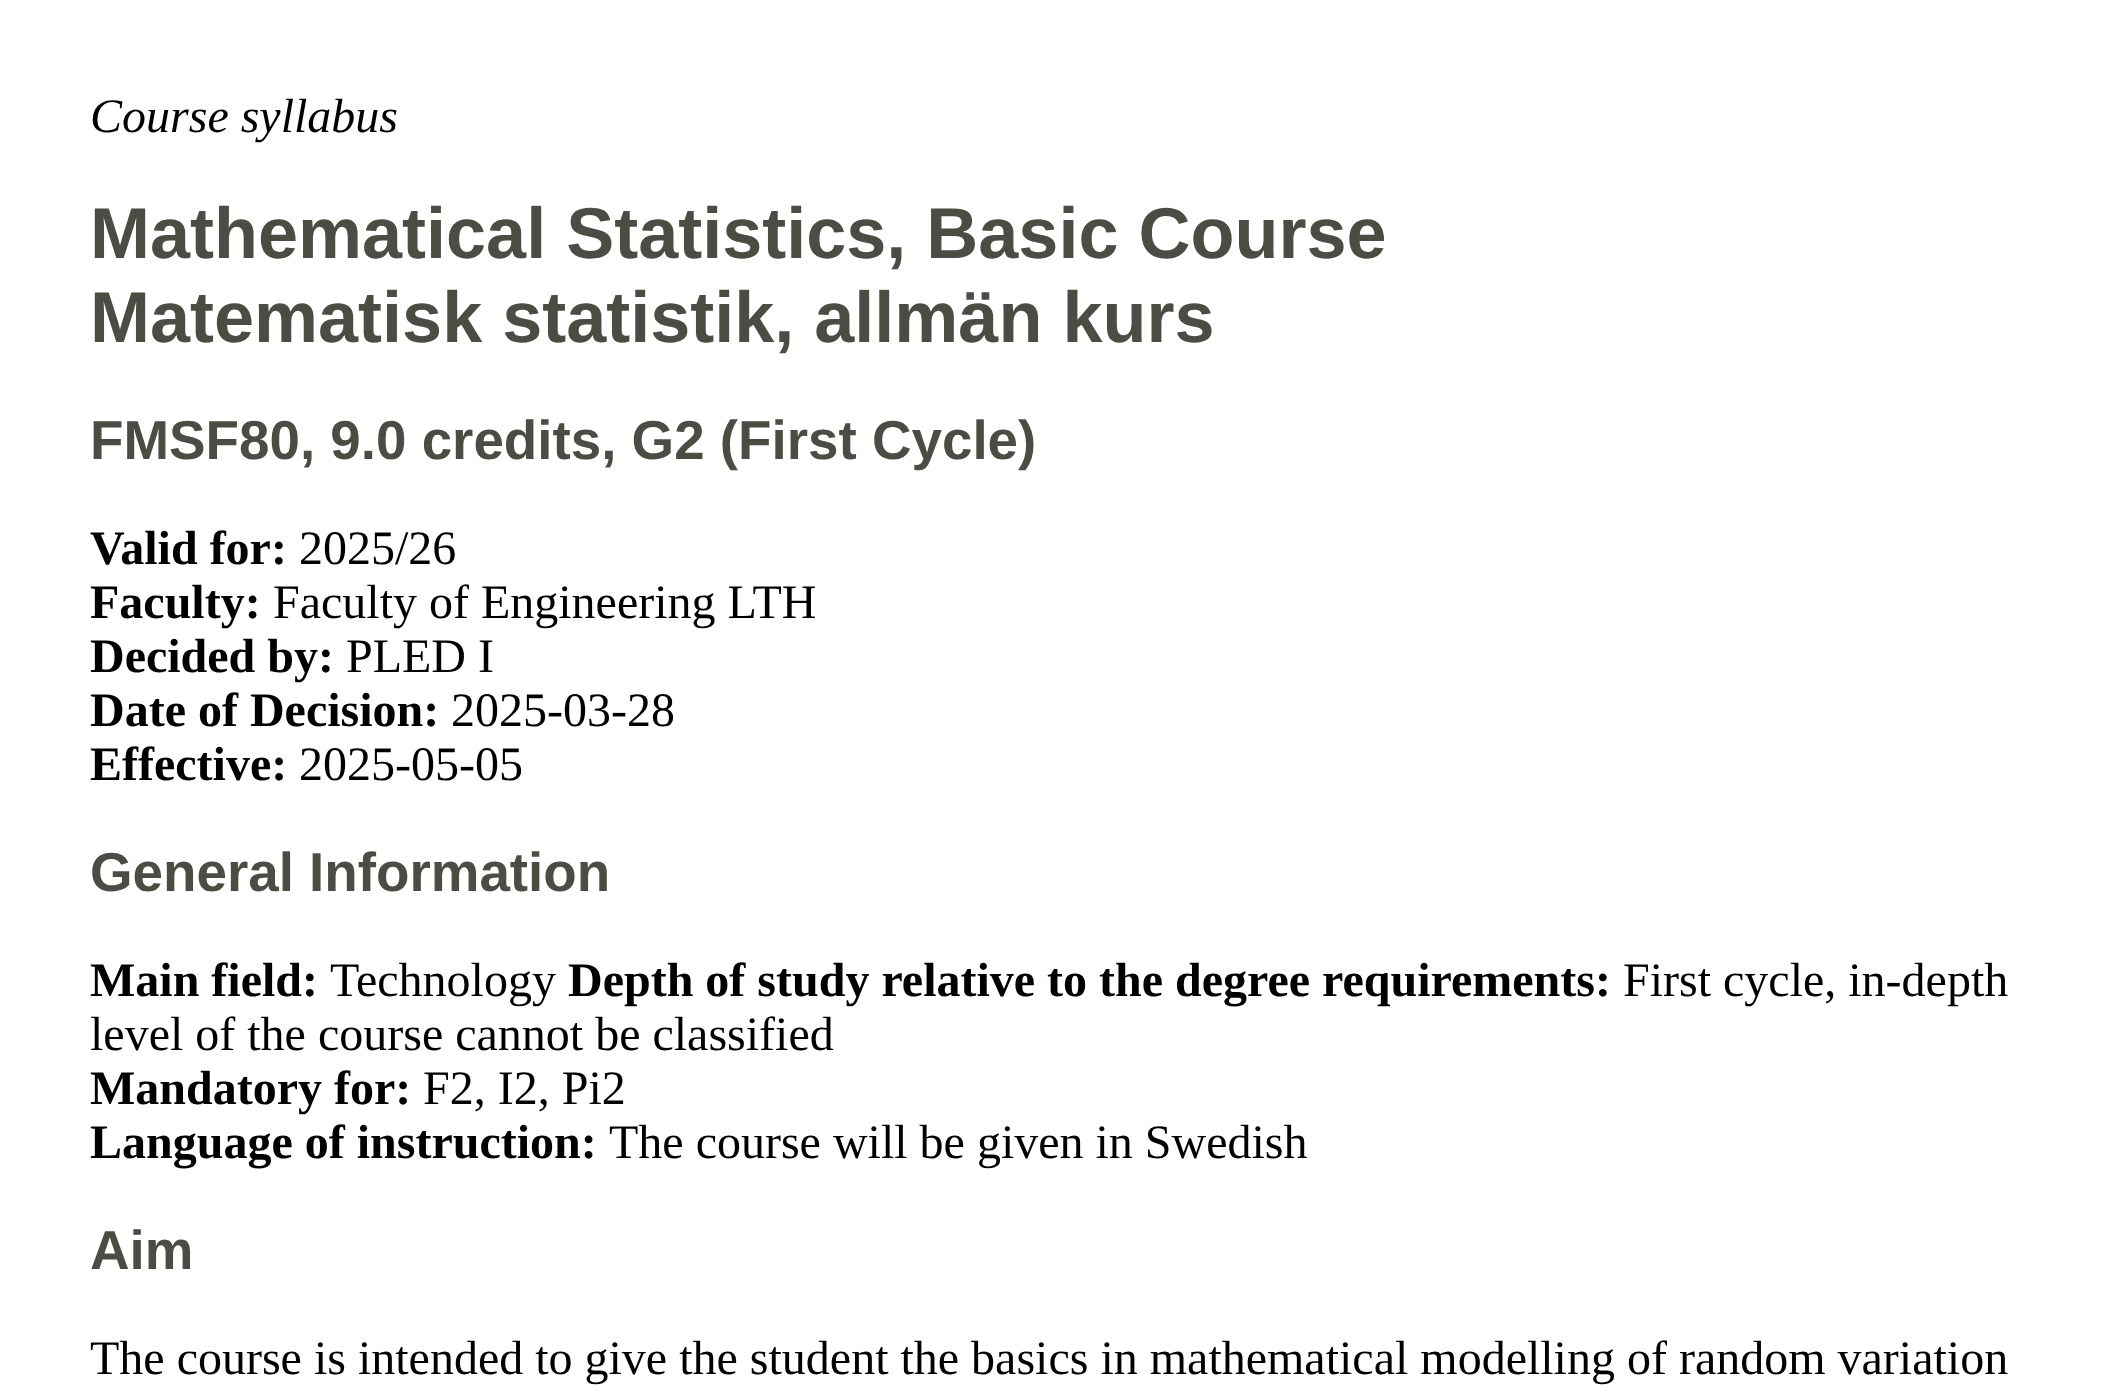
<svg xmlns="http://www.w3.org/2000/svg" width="2122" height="1392">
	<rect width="100%" height="100%" fill="#FFFFFF" />
	<text x="90" y="132" font-family="Liberation Serif" font-size="48" font-style="italic" fill="#000000">Course syllabus</text>
	<g font-family="Liberation Sans" font-size="72" font-weight="700" fill="#4D4C44">
		<text x="90" y="258">Mathematical Statistics, Basic Course</text>
		<text x="90" y="342">Matematisk statistik, allmän kurs</text>
	</g>
	<text x="90" y="459" font-family="Liberation Sans" font-size="54.75" font-weight="700" fill="#4D4C44">FMSF80, 9.0 credits, G2 (First Cycle)</text>
	<text x="90" y="564" font-family="Liberation Serif" font-size="48" font-weight="700" fill="#000000">Valid for:</text>
	<text x="299" y="564" font-family="Liberation Serif" font-size="48" fill="#000000">2025/26</text>
	<text x="90" y="618" font-family="Liberation Serif" font-size="48" font-weight="700" fill="#000000">Faculty:</text>
	<text x="273" y="618" font-family="Liberation Serif" font-size="48" fill="#000000">Faculty of Engineering LTH</text>
	<text x="90" y="672" font-family="Liberation Serif" font-size="48" font-weight="700" fill="#000000">Decided by:</text>
	<text x="346" y="672" font-family="Liberation Serif" font-size="48" fill="#000000">PLED I</text>
	<text x="90" y="726" font-family="Liberation Serif" font-size="48" font-weight="700" fill="#000000">Date of Decision:</text>
	<text x="451" y="726" font-family="Liberation Serif" font-size="48" fill="#000000">2025-03-28</text>
	<text x="90" y="780" font-family="Liberation Serif" font-size="48" font-weight="700" fill="#000000">Effective:</text>
	<text x="299" y="780" font-family="Liberation Serif" font-size="48" fill="#000000">2025-05-05</text>
	<text x="90" y="891" font-family="Liberation Sans" font-size="54.75" font-weight="700" fill="#4D4C44">General Information</text>
	<text x="90" y="996" font-family="Liberation Serif" font-size="48" font-weight="700" fill="#000000">Main field:</text>
	<text x="330" y="996" font-family="Liberation Serif" font-size="48" fill="#000000">Technology</text>
	<text x="568" y="996" font-family="Liberation Serif" font-size="48" font-weight="700" fill="#000000">Depth of study relative to the degree requirements:</text>
	<g font-family="Liberation Serif" font-size="48" fill="#000000">
		<text x="1623" y="996">First cycle, in-depth</text>
		<text x="90" y="1050">level of the course cannot be classified</text>
	</g>
	<text x="90" y="1104" font-family="Liberation Serif" font-size="48" font-weight="700" fill="#000000">Mandatory for:</text>
	<text x="423" y="1104" font-family="Liberation Serif" font-size="48" fill="#000000">F2, I2, Pi2</text>
	<text x="90" y="1158" font-family="Liberation Serif" font-size="48" font-weight="700" fill="#000000">Language of instruction:</text>
	<text x="609" y="1158" font-family="Liberation Serif" font-size="48" fill="#000000">The course will be given in Swedish</text>
	<text x="90" y="1269" font-family="Liberation Sans" font-size="54.75" font-weight="700" fill="#4D4C44">Aim</text>
	<text x="90" y="1374" font-family="Liberation Serif" font-size="48" fill="#000000">The course is intended to give the student the basics in mathematical modelling of random variation</text>
</svg>
